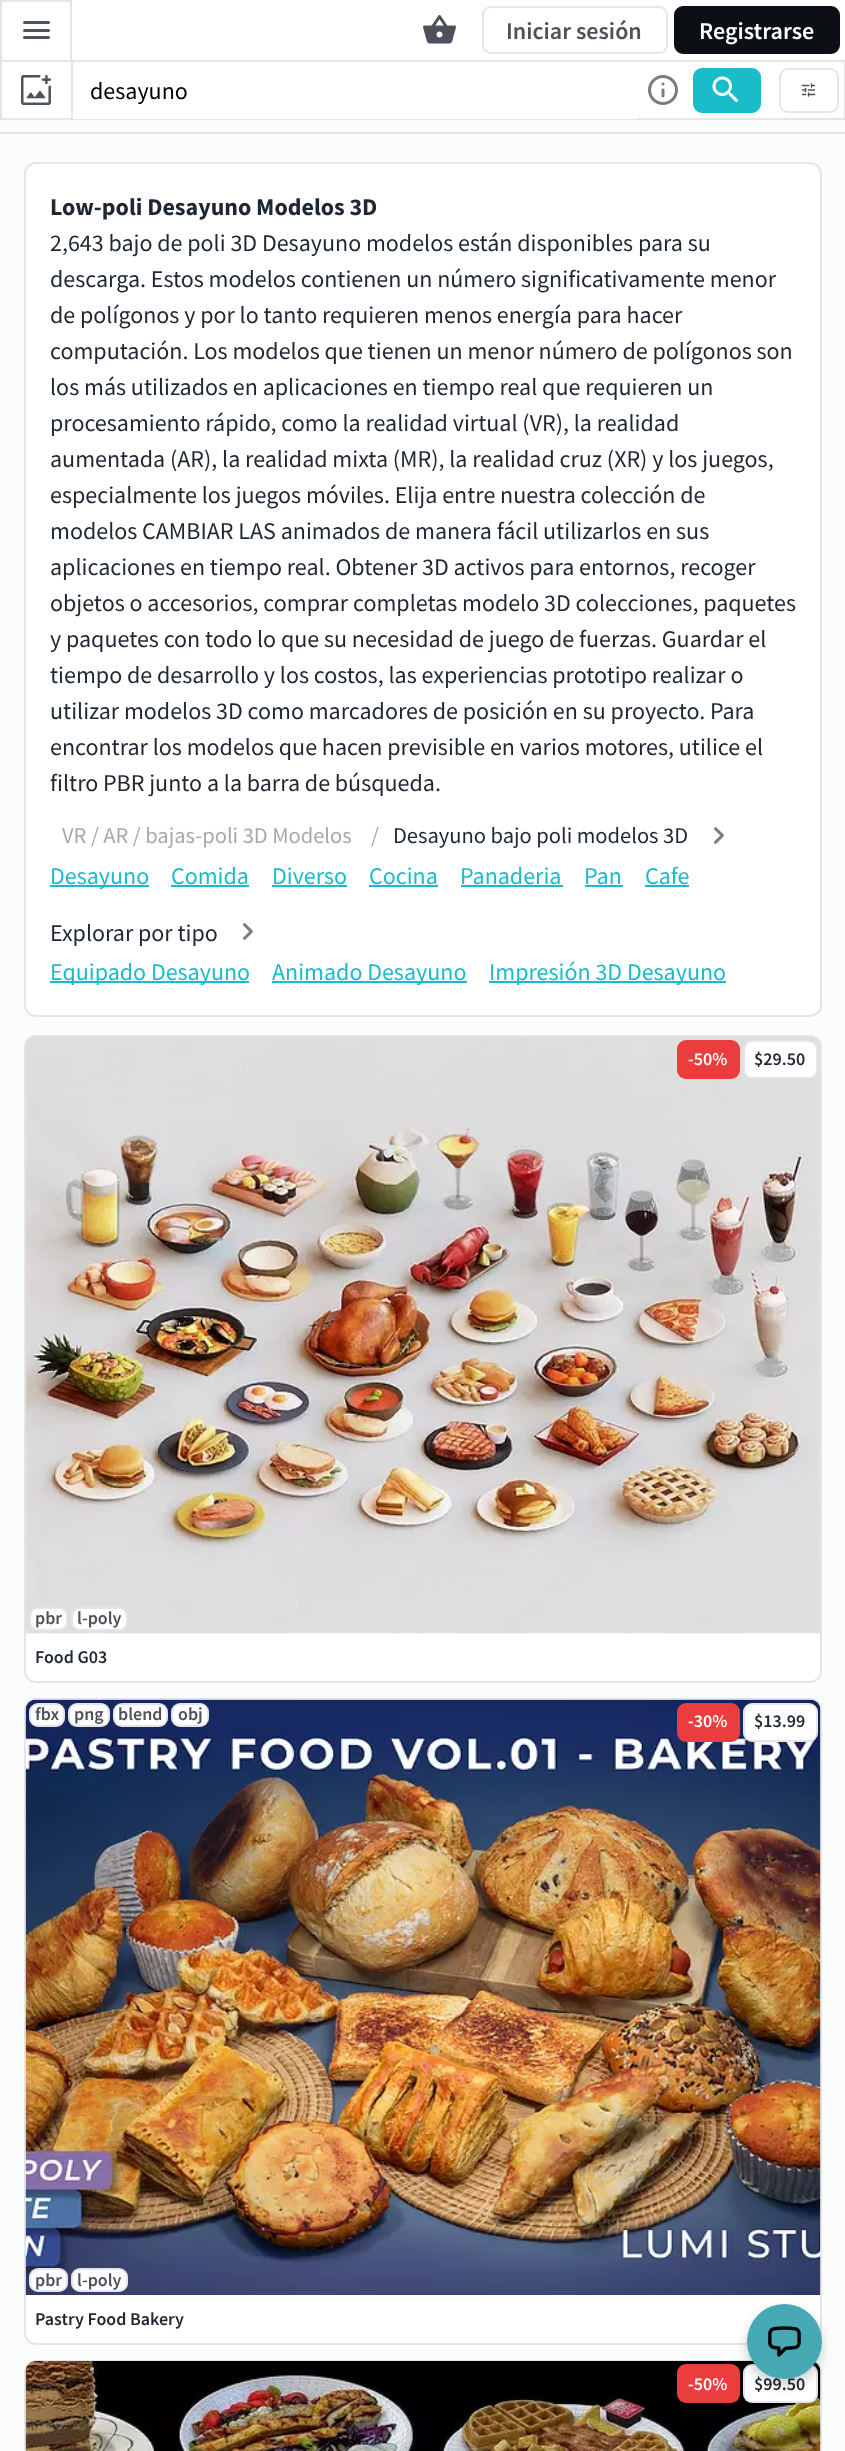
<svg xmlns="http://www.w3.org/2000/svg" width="845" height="2451">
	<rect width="100%" height="100%" fill="#FBFCFC" />
	<rect x="0" y="0" width="845" height="118" fill="#FFFFFF" />
	<path d="M0 0H72L70 2H2Z" fill="#E4E5E6" />
	<path d="M72 0V60H70V2Z" fill="#1E2732" fill-opacity="0.12" />
	<path d="M0 60V0L2 2V60Z" fill="#1E2732" fill-opacity="0.12" />
	<rect x="23" y="29" width="27" height="3" rx="1.5" fill="#4B525B" />
	<rect x="23" y="21" width="27" height="3" rx="1.5" fill="#4B525B" />
	<rect x="23" y="36" width="27" height="3" rx="1.5" fill="#4B525B" />
	<image x="423" y="15" width="33" height="29" href="assets/img1.png" />
	<rect x="483" y="7" width="184" height="46" rx="8" fill="none" stroke="#E4E5E6" stroke-width="2" />
	<text x="506" y="39" font-family="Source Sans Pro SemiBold" font-size="24" font-weight="600" fill="#4B525B">Iniciar sesión</text>
	<rect x="675" y="7" width="164" height="46" rx="8" fill="#0C1015" stroke="#0C1015" stroke-width="2" />
	<text x="699" y="39" font-family="Source Sans Pro SemiBold" font-size="24" font-weight="600" fill="#FFFFFF">Registrarse</text>
	<rect x="1" y="61" width="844" height="58" fill="none" stroke="#E4E5E6" stroke-width="2" />
	<rect x="72" y="118" width="566" height="1" fill="#FFFFFF" />
	<rect x="71" y="62" width="2" height="57" fill="#1E2732" fill-opacity="0.12" />
	<image x="21" y="75" width="30" height="30" href="assets/img2.png" />
	<text x="90" y="99" font-family="Source Sans Pro" font-size="24" fill="#000000">desayuno</text>
	<image x="648" y="75" width="30" height="30" href="assets/img3.png" />
	<rect x="694" y="69" width="66" height="43" rx="8" fill="#19BCC9" stroke="#19BCC9" stroke-width="2" />
	<image x="712" y="76" width="27" height="27" href="assets/img4.png" />
	<rect x="780" y="69" width="58" height="43" rx="8" fill="none" stroke="#E4E5E6" stroke-width="2" />
	<image x="801" y="83" width="15" height="14" href="assets/img5.png" />
	<rect x="0" y="132" width="845" height="2" fill="#E0E2E4" />
	<rect x="25" y="163" width="796" height="853" rx="11" fill="#FFFFFF" stroke="#E4E5E6" stroke-width="2" />
	<text x="50" y="215" font-family="Source Sans Pro" font-size="24" font-weight="700" fill="#1E2732">Low-poli Desayuno Modelos 3D</text>
	<g font-family="Source Sans Pro" font-size="24" fill="#1E2732">
		<text x="50" y="251">2,643 bajo de poli 3D Desayuno modelos están disponibles para su</text>
		<text x="50" y="287">descarga. Estos modelos contienen un número significativamente menor</text>
		<text x="50" y="323">de polígonos y por lo tanto requieren menos energía para hacer</text>
		<text x="50" y="359">computación. Los modelos que tienen un menor número de polígonos son</text>
		<text x="50" y="395">los más utilizados en aplicaciones en tiempo real que requieren un</text>
		<text x="50" y="431">procesamiento rápido, como la realidad virtual (VR), la realidad</text>
		<text x="50" y="467">aumentada (AR), la realidad mixta (MR), la realidad cruz (XR) y los juegos,</text>
		<text x="50" y="503">especialmente los juegos móviles. Elija entre nuestra colección de</text>
		<text x="50" y="539">modelos CAMBIAR LAS animados de manera fácil utilizarlos en sus</text>
		<text x="50" y="575">aplicaciones en tiempo real. Obtener 3D activos para entornos, recoger</text>
		<text x="50" y="611">objetos o accesorios, comprar completas modelo 3D colecciones, paquetes</text>
		<text x="50" y="647">y paquetes con todo lo que su necesidad de juego de fuerzas. Guardar el</text>
		<text x="50" y="683">tiempo de desarrollo y los costos, las experiencias prototipo realizar o</text>
		<text x="50" y="719">utilizar modelos 3D como marcadores de posición en su proyecto. Para</text>
		<text x="50" y="755">encontrar los modelos que hacen previsible en varios motores, utilice el</text>
		<text x="50" y="791">filtro PBR junto a la barra de búsqueda.</text>
	</g>
	<g font-family="Source Sans Pro" font-size="22.5" fill="#A5A9AD">
		<text x="62" y="843">VR / AR / bajas-poli 3D Modelos</text>
		<text x="371" y="843">/</text>
	</g>
	<text x="393" y="843" font-family="Source Sans Pro" font-size="22.5" fill="#1E2732">Desayuno bajo poli modelos 3D</text>
	<image x="714" y="827" width="10" height="17" href="assets/img6.png" />
	<rect x="50" y="885" width="99" height="2" fill="#19BCC9" />
	<g font-family="Source Sans Pro" font-size="24" fill="#19BCC9">
		<text x="50" y="884">Desayuno</text>
		<text x="171" y="884">Comida</text>
	</g>
	<rect x="171" y="885" width="78" height="2" fill="#19BCC9" />
	<text x="272" y="884" font-family="Source Sans Pro" font-size="24" fill="#19BCC9">Diverso</text>
	<rect x="272" y="885" width="75" height="2" fill="#19BCC9" />
	<text x="369" y="884" font-family="Source Sans Pro" font-size="24" fill="#19BCC9">Cocina</text>
	<rect x="369" y="885" width="69" height="2" fill="#19BCC9" />
	<text x="460" y="884" font-family="Source Sans Pro" font-size="24" fill="#19BCC9">Panaderia</text>
	<rect x="461" y="885" width="102" height="2" fill="#19BCC9" />
	<text x="584" y="884" font-family="Source Sans Pro" font-size="24" fill="#19BCC9">Pan</text>
	<rect x="585" y="885" width="38" height="2" fill="#19BCC9" />
	<text x="645" y="884" font-family="Source Sans Pro" font-size="24" fill="#19BCC9">Cafe</text>
	<rect x="645" y="885" width="44" height="2" fill="#19BCC9" />
	<text x="50" y="941" font-family="Source Sans Pro" font-size="24" fill="#1E2732">Explorar por tipo</text>
	<image x="243" y="923" width="10" height="17" href="assets/img6.png" />
	<rect x="50" y="981" width="199" height="2" fill="#19BCC9" />
	<text x="50" y="980" font-family="Source Sans Pro" font-size="24" fill="#19BCC9">Equipado Desayuno</text>
	<rect x="272" y="981" width="195" height="2" fill="#19BCC9" />
	<text x="272" y="980" font-family="Source Sans Pro" font-size="24" fill="#19BCC9">Animado Desayuno</text>
	<rect x="489" y="981" width="237" height="2" fill="#19BCC9" />
	<text x="489" y="980" font-family="Source Sans Pro" font-size="24" fill="#19BCC9">Impresión 3D Desayuno</text>
	<rect x="25" y="1036" width="796" height="646" rx="11" fill="#FFFFFF" stroke="#E4E5E6" stroke-width="2" />
	<image x="25" y="1037" width="795" height="597" href="assets/img7.png" />
	<rect x="677" y="1040" width="63" height="39" rx="9" fill="#EB3D3D" />
	<text x="688" y="1065" font-family="Source Sans Pro SemiBold" font-size="18" font-weight="600" fill="#FFFFFF">-50%</text>
	<rect x="743" y="1040" width="75" height="39" rx="9" fill="#FFFFFF" />
	<rect x="744" y="1041" width="73" height="37" rx="8" fill="none" stroke="#1E2732" stroke-opacity="0.12" stroke-width="2" />
	<text x="754" y="1065" font-family="Source Sans Pro SemiBold" font-size="18" font-weight="600" fill="#1E2732">$29.50</text>
	<rect x="29" y="1607" width="39" height="24" rx="9" fill="#FFFFFF" />
	<rect x="30" y="1608" width="37" height="22" rx="8" fill="none" stroke="#1E2732" stroke-opacity="0.12" stroke-width="2" />
	<text x="35" y="1624" font-family="Source Sans Pro SemiBold" font-size="18" font-weight="600" fill="#4B525B">pbr</text>
	<rect x="71" y="1607" width="57" height="24" rx="9" fill="#FFFFFF" />
	<rect x="72" y="1608" width="55" height="22" rx="8" fill="none" stroke="#1E2732" stroke-opacity="0.12" stroke-width="2" />
	<text x="77" y="1624" font-family="Source Sans Pro SemiBold" font-size="18" font-weight="600" fill="#4B525B">l-poly</text>
	<text x="35" y="1663" font-family="Source Sans Pro SemiBold" font-size="18" font-weight="600" fill="#1E2732">Food G03</text>
	<rect x="25" y="1699" width="796" height="645" rx="11" fill="#FFFFFF" stroke="#E4E5E6" stroke-width="2" />
	<image x="25" y="1699" width="796" height="596" href="assets/img8.png" />
	<rect x="29" y="1703" width="36" height="24" rx="9" fill="#FFFFFF" />
	<rect x="30" y="1704" width="34" height="22" rx="8" fill="none" stroke="#1E2732" stroke-opacity="0.12" stroke-width="2" />
	<text x="35" y="1720" font-family="Source Sans Pro SemiBold" font-size="18" font-weight="600" fill="#4B525B">fbx</text>
	<rect x="68" y="1703" width="42" height="24" rx="9" fill="#FFFFFF" />
	<rect x="69" y="1704" width="40" height="22" rx="8" fill="none" stroke="#1E2732" stroke-opacity="0.12" stroke-width="2" />
	<text x="74" y="1720" font-family="Source Sans Pro SemiBold" font-size="18" font-weight="600" fill="#4B525B">png</text>
	<rect x="113" y="1703" width="55" height="24" rx="9" fill="#FFFFFF" />
	<rect x="114" y="1704" width="53" height="22" rx="8" fill="none" stroke="#1E2732" stroke-opacity="0.12" stroke-width="2" />
	<text x="118" y="1720" font-family="Source Sans Pro SemiBold" font-size="18" font-weight="600" fill="#4B525B">blend</text>
	<rect x="171" y="1703" width="38" height="24" rx="9" fill="#FFFFFF" />
	<rect x="172" y="1704" width="36" height="22" rx="8" fill="none" stroke="#1E2732" stroke-opacity="0.12" stroke-width="2" />
	<text x="178" y="1720" font-family="Source Sans Pro SemiBold" font-size="18" font-weight="600" fill="#4B525B">obj</text>
	<rect x="677" y="1703" width="63" height="39" rx="9" fill="#EB3D3D" />
	<text x="688" y="1727" font-family="Source Sans Pro SemiBold" font-size="18" font-weight="600" fill="#FFFFFF">-30%</text>
	<rect x="743" y="1703" width="75" height="39" rx="9" fill="#FFFFFF" />
	<rect x="744" y="1704" width="73" height="37" rx="8" fill="none" stroke="#1E2732" stroke-opacity="0.12" stroke-width="2" />
	<text x="754" y="1727" font-family="Source Sans Pro SemiBold" font-size="18" font-weight="600" fill="#1E2732">$13.99</text>
	<rect x="29" y="2268" width="39" height="24" rx="9" fill="#FFFFFF" />
	<rect x="30" y="2269" width="37" height="22" rx="8" fill="none" stroke="#1E2732" stroke-opacity="0.12" stroke-width="2" />
	<text x="35" y="2286" font-family="Source Sans Pro SemiBold" font-size="18" font-weight="600" fill="#4B525B">pbr</text>
	<rect x="71" y="2268" width="57" height="24" rx="9" fill="#FFFFFF" />
	<rect x="72" y="2269" width="55" height="22" rx="8" fill="none" stroke="#1E2732" stroke-opacity="0.12" stroke-width="2" />
	<text x="77" y="2286" font-family="Source Sans Pro SemiBold" font-size="18" font-weight="600" fill="#4B525B">l-poly</text>
	<text x="35" y="2325" font-family="Source Sans Pro SemiBold" font-size="18" font-weight="600" fill="#1E2732">Pastry Food Bakery</text>
	<rect x="25" y="2361" width="796" height="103" rx="11" fill="none" stroke="#E4E5E6" stroke-width="2" />
	<image x="25" y="2361" width="796" height="90" href="assets/img9.png" />
	<rect x="677" y="2364" width="63" height="39" rx="9" fill="#EB3D3D" />
	<text x="688" y="2390" font-family="Source Sans Pro SemiBold" font-size="18" font-weight="600" fill="#FFFFFF">-50%</text>
	<rect x="743" y="2364" width="75" height="39" rx="9" fill="#FFFFFF" />
	<rect x="744" y="2365" width="73" height="37" rx="8" fill="none" stroke="#1E2732" stroke-opacity="0.12" stroke-width="2" />
	<text x="754" y="2390" font-family="Source Sans Pro SemiBold" font-size="18" font-weight="600" fill="#1E2732">$99.50</text>
	<rect x="747" y="2310" width="75" height="75" rx="37.5" fill="#000000" fill-opacity="0.2" filter="blur(6px)" />
	<circle cx="784.5" cy="2341.5" r="37.5" fill="#46A9B4" />
	<image x="768" y="2326" width="33" height="31" href="assets/img10.png" />
</svg>
